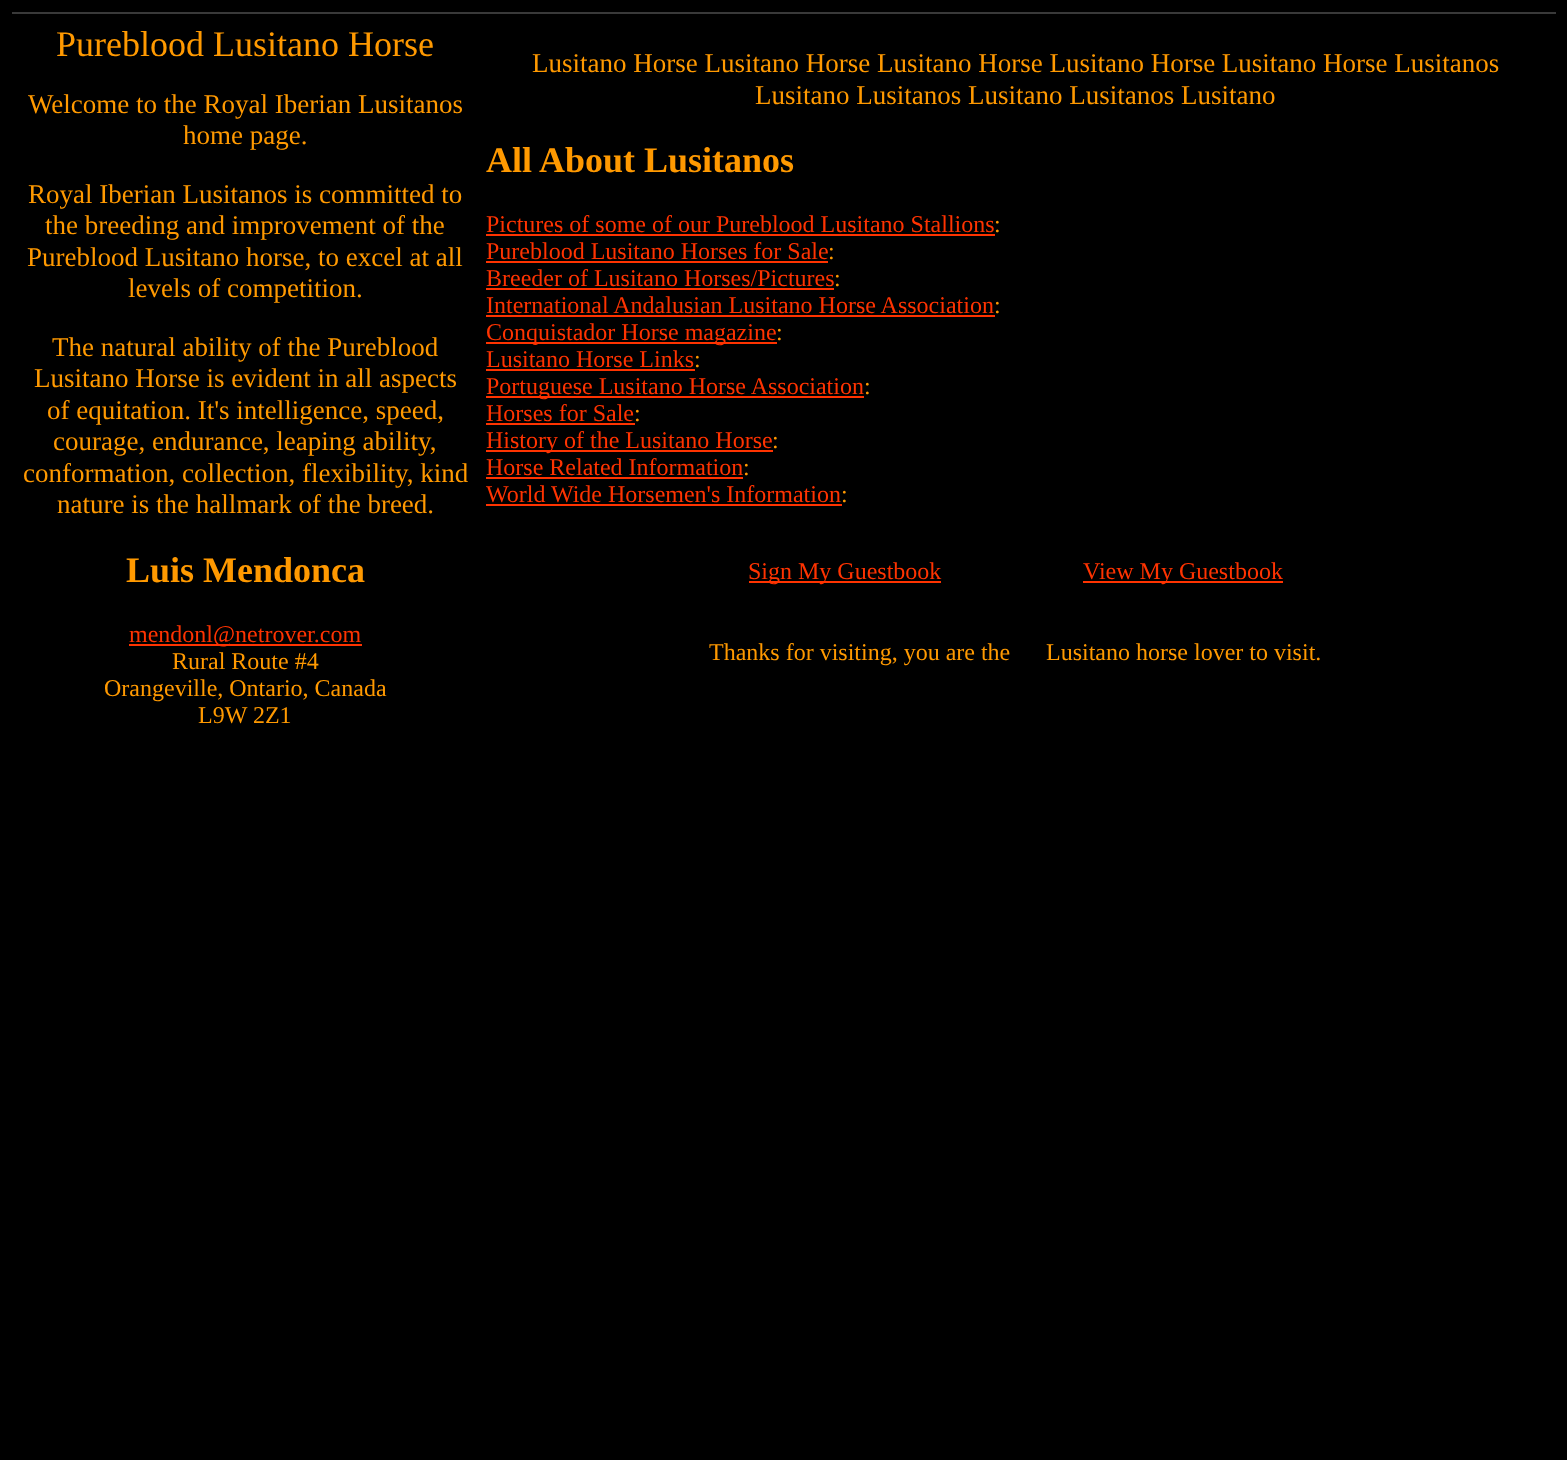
<svg xmlns="http://www.w3.org/2000/svg" width="1567" height="1460">
	<rect width="100%" height="100%" fill="#000000" />
	<rect x="12" y="12" width="1544" height="2" fill="#393939" />
	<text x="56" y="56" font-family="Liberation Serif" font-size="36" fill="#FF9900">Pureblood Lusitano Horse</text>
	<g font-family="Liberation Serif" font-size="27" fill="#FF9900">
		<text x="28" y="113">Welcome to the Royal Iberian Lusitanos</text>
		<text x="183" y="144">home page.</text>
		<text x="28" y="203">Royal Iberian Lusitanos is committed to</text>
		<text x="45" y="234">the breeding and improvement of the</text>
		<text x="27" y="266">Pureblood Lusitano horse, to excel at all</text>
		<text x="128" y="297">levels of competition.</text>
		<text x="52" y="356">The natural ability of the Pureblood</text>
		<text x="34" y="387">Lusitano Horse is evident in all aspects</text>
		<text x="47" y="419">of equitation. It's intelligence, speed,</text>
		<text x="53" y="450">courage, endurance, leaping ability,</text>
		<text x="23" y="482">conformation, collection, flexibility, kind</text>
		<text x="57" y="513">nature is the hallmark of the breed.</text>
	</g>
	<text x="126" y="582" font-family="Liberation Serif" font-size="36" font-weight="700" fill="#FF9900">Luis Mendonca</text>
	<rect x="129" y="644" width="233" height="2" fill="#FF3300" />
	<text x="129" y="642" font-family="Liberation Serif" font-size="24" fill="#FF3300">mendonl@netrover.com</text>
	<g font-family="Liberation Serif" font-size="24" fill="#FF9900">
		<text x="172" y="669">Rural Route #4</text>
		<text x="104" y="696">Orangeville, Ontario, Canada</text>
		<text x="198" y="723">L9W 2Z1</text>
	</g>
	<g font-family="Liberation Serif" font-size="27" fill="#FF9900">
		<text x="532" y="72">Lusitano Horse Lusitano Horse Lusitano Horse Lusitano Horse Lusitano Horse Lusitanos</text>
		<text x="755" y="104">Lusitano Lusitanos Lusitano Lusitanos Lusitano</text>
	</g>
	<text x="486" y="172" font-family="Liberation Serif" font-size="36" font-weight="700" fill="#FF9900">All About Lusitanos</text>
	<text x="486" y="232" font-family="Liberation Serif" font-size="24" fill="#FF3300">Pictures of some of our Pureblood Lusitano Stallions</text>
	<rect x="486" y="234" width="509" height="2" fill="#FF3300" />
	<text x="994" y="232" font-family="Liberation Serif" font-size="24" fill="#FF9900">:</text>
	<text x="486" y="259" font-family="Liberation Serif" font-size="24" fill="#FF3300">Pureblood Lusitano Horses for Sale</text>
	<rect x="486" y="261" width="342" height="2" fill="#FF3300" />
	<text x="828" y="259" font-family="Liberation Serif" font-size="24" fill="#FF9900">:</text>
	<text x="486" y="286" font-family="Liberation Serif" font-size="24" fill="#FF3300">Breeder of Lusitano Horses/Pictures</text>
	<rect x="486" y="288" width="348" height="2" fill="#FF3300" />
	<text x="834" y="286" font-family="Liberation Serif" font-size="24" fill="#FF9900">:</text>
	<text x="486" y="313" font-family="Liberation Serif" font-size="24" fill="#FF3300">International Andalusian Lusitano Horse Association</text>
	<rect x="486" y="315" width="509" height="2" fill="#FF3300" />
	<text x="994" y="313" font-family="Liberation Serif" font-size="24" fill="#FF9900">:</text>
	<rect x="486" y="342" width="291" height="2" fill="#FF3300" />
	<text x="486" y="340" font-family="Liberation Serif" font-size="24" fill="#FF3300">Conquistador Horse magazine</text>
	<text x="776" y="340" font-family="Liberation Serif" font-size="24" fill="#FF9900">:</text>
	<text x="486" y="367" font-family="Liberation Serif" font-size="24" fill="#FF3300">Lusitano Horse Links</text>
	<rect x="486" y="369" width="209" height="2" fill="#FF3300" />
	<text x="694" y="367" font-family="Liberation Serif" font-size="24" fill="#FF9900">:</text>
	<rect x="486" y="396" width="378" height="2" fill="#FF3300" />
	<text x="486" y="394" font-family="Liberation Serif" font-size="24" fill="#FF3300">Portuguese Lusitano Horse Association</text>
	<text x="864" y="394" font-family="Liberation Serif" font-size="24" fill="#FF9900">:</text>
	<text x="486" y="421" font-family="Liberation Serif" font-size="24" fill="#FF3300">Horses for Sale</text>
	<rect x="486" y="423" width="149" height="2" fill="#FF3300" />
	<text x="634" y="421" font-family="Liberation Serif" font-size="24" fill="#FF9900">:</text>
	<rect x="486" y="450" width="287" height="2" fill="#FF3300" />
	<text x="486" y="448" font-family="Liberation Serif" font-size="24" fill="#FF3300">History of the Lusitano Horse</text>
	<text x="772" y="448" font-family="Liberation Serif" font-size="24" fill="#FF9900">:</text>
	<text x="486" y="475" font-family="Liberation Serif" font-size="24" fill="#FF3300">Horse Related Information</text>
	<rect x="486" y="477" width="257" height="2" fill="#FF3300" />
	<text x="743" y="475" font-family="Liberation Serif" font-size="24" fill="#FF9900">:</text>
	<text x="486" y="502" font-family="Liberation Serif" font-size="24" fill="#FF3300">World Wide Horsemen's Information</text>
	<rect x="486" y="504" width="356" height="2" fill="#FF3300" />
	<text x="841" y="502" font-family="Liberation Serif" font-size="24" fill="#FF9900">:</text>
	<rect x="749" y="581" width="192" height="2" fill="#FF3300" />
	<text x="748" y="579" font-family="Liberation Serif" font-size="24" fill="#FF3300">Sign My Guestbook</text>
	<rect x="1083" y="581" width="200" height="2" fill="#FF3300" />
	<text x="1083" y="579" font-family="Liberation Serif" font-size="24" fill="#FF3300">View My Guestbook</text>
	<g font-family="Liberation Serif" font-size="24" fill="#FF9900">
		<text x="709" y="660">Thanks for visiting, you are the</text>
		<text x="1046" y="660">Lusitano horse lover to visit.</text>
	</g>
</svg>
